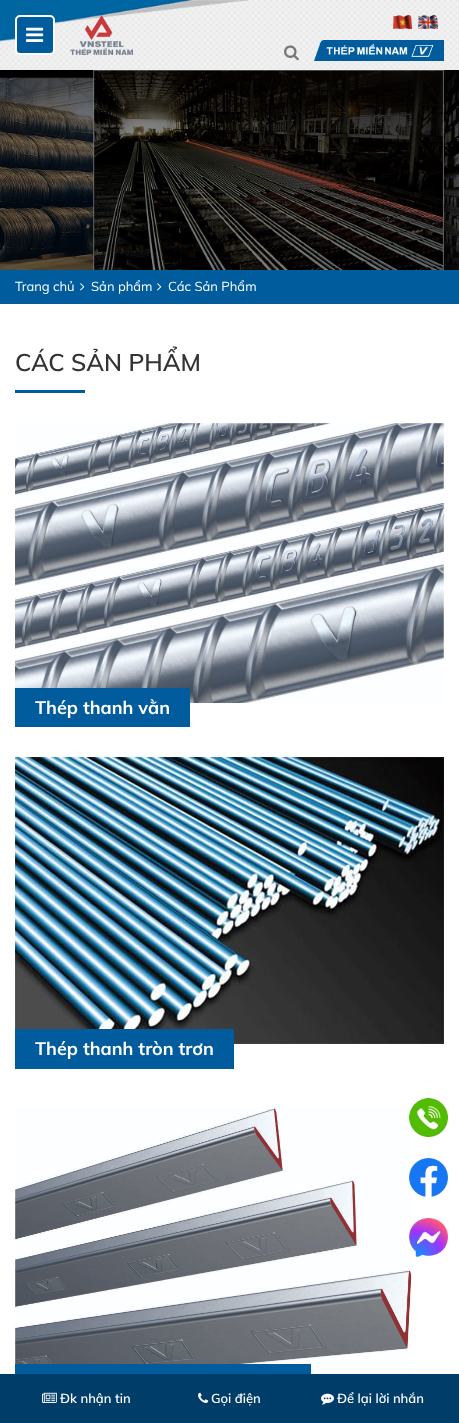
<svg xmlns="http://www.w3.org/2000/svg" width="459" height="1423">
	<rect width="100%" height="100%" fill="#FFFFFF" />
	<image x="0" y="0" width="459" height="70" href="assets/img1.png" />
	<image x="0" y="0" width="250" height="42" href="assets/img2.png" />
	<rect x="16" y="16" width="38" height="38" rx="4" fill="#005C9C" stroke="#FFFFFF" stroke-width="2" />
	<image x="26" y="27" width="18" height="15" href="assets/img3.png" />
	<image x="70" y="15" width="63" height="40" href="assets/img4.png" />
	<image x="393" y="15" width="20" height="14" href="assets/img5.png" />
	<image x="418" y="15" width="20" height="14" href="assets/img6.png" />
	<image x="284" y="45" width="15" height="16" href="assets/img7.png" />
	<image x="314" y="40" width="130" height="21" href="assets/img8.png" />
	<image x="0" y="70" width="459" height="200" href="assets/img9.png" />
	<rect x="0" y="270" width="459" height="34" fill="#005C9C" />
	<text x="15" y="291" font-family="Muli" font-size="13" fill="#FFFFFF">Trang chủ</text>
	<image x="80" y="283" width="5" height="8" href="assets/img10.png" />
	<text x="91" y="291" font-family="Muli" font-size="13" fill="#FFFFFF">Sản phẩm</text>
	<image x="157" y="283" width="5" height="8" href="assets/img10.png" />
	<text x="168" y="291" font-family="Muli" font-size="13" fill="#FFFFFF">Các Sản Phẩm</text>
	<text x="15" y="371" font-family="Muli" font-size="24" font-weight="600" fill="#333333">CÁC SẢN PHẨM</text>
	<rect x="15" y="390" width="70" height="3" fill="#005C9C" />
	<image x="15" y="423" width="429" height="280" href="assets/img11.png" />
	<rect x="15" y="688" width="175" height="39" fill="#005C9C" />
	<text x="35" y="714" font-family="Muli" font-size="18" font-weight="700" fill="#FFFFFF">Thép thanh vằn</text>
	<image x="15" y="757" width="429" height="287" href="assets/img12.png" />
	<rect x="15" y="1029" width="219" height="40" fill="#005C9C" />
	<text x="35" y="1055" font-family="Muli" font-size="18" font-weight="700" fill="#FFFFFF">Thép thanh tròn trơn</text>
	<image x="15" y="1107" width="397" height="267" href="assets/img13.png" />
	<rect x="15" y="1364" width="296" height="10" fill="#005C9C" />
	<rect x="0" y="1374" width="459" height="49" fill="#003E69" />
	<image x="42" y="1392" width="15" height="11" href="assets/img14.png" />
	<text x="60" y="1403" font-family="Muli" font-size="13" font-weight="600" fill="#FFFFFF">Đk nhận tin</text>
	<image x="198" y="1392" width="11" height="11" href="assets/img15.png" />
	<text x="211" y="1403" font-family="Muli" font-size="13" font-weight="600" fill="#FFFFFF">Gọi điện</text>
	<image x="321" y="1393" width="13" height="12" href="assets/img16.png" />
	<text x="337" y="1403" font-family="Muli" font-size="13" font-weight="600" fill="#FFFFFF">Để lại lời nhắn</text>
	<image x="409" y="1098" width="39" height="39" href="assets/img17.png" />
	<image x="409" y="1158" width="39" height="39" href="assets/img18.png" />
	<image x="409" y="1218" width="39" height="39" href="assets/img19.png" />
</svg>
